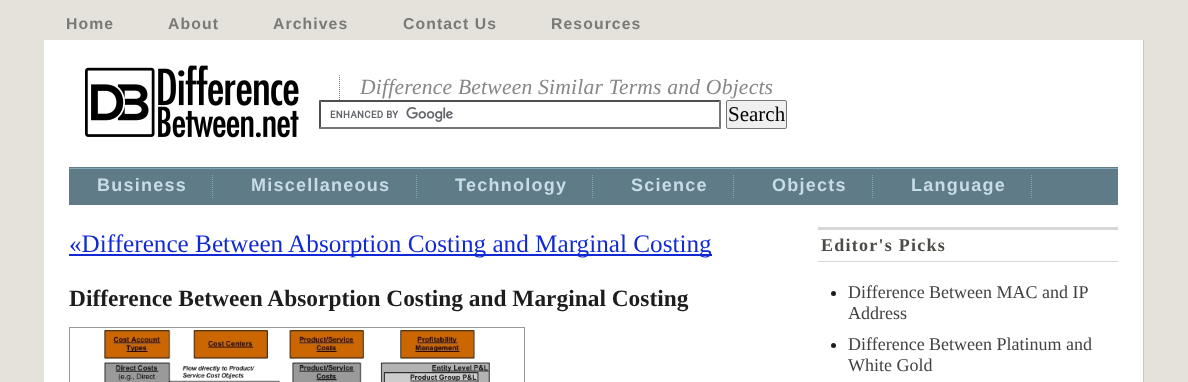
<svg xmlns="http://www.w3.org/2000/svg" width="1188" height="382">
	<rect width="100%" height="100%" fill="#E4E2DB" />
	<g font-family="Liberation Sans" font-size="15.75" font-weight="700" letter-spacing="1.1" fill="#797976">
		<text x="66" y="29">Home</text>
		<text x="168" y="29">About</text>
		<text x="273" y="29">Archives</text>
		<text x="403" y="29">Contact Us</text>
		<text x="551" y="29">Resources</text>
	</g>
	<rect x="44" y="40" width="1099" height="342" fill="#FFFFFF" />
	<rect x="1143" y="40" width="1" height="342" fill="#CAC8C2" />
	<rect x="69" y="167" width="1049" height="1" fill="#607B88" />
	<image x="85" y="65" width="214" height="73" href="assets/img1.png" />
	<path d="M339.5 75V100" fill="none" stroke="#7C7C7C" stroke-dasharray="1 1" />
	<text x="360" y="94" font-family="Liberation Serif" font-size="21.6" font-style="italic" letter-spacing="0.2" fill="#888787">Difference Between Similar Terms and Objects</text>
	<image x="330" y="107" width="123" height="15" href="assets/img2.png" />
	<path d="M319 100H721L719 102H321Z" fill="#4F4F4F" />
	<path d="M721 100V129L719 127V102Z" fill="#767676" />
	<path d="M721 129H319L321 127H719Z" fill="#767676" />
	<path d="M319 129V100L321 102V127Z" fill="#4F4F4F" />
	<rect x="726.5" y="100.5" width="60" height="28" rx="1.5" fill="#EFEFEF" stroke="#767676" />
	<text x="728" y="121" font-family="Liberation Serif" font-size="21" fill="#000000">Search</text>
	<rect x="69" y="169" width="1049" height="36" fill="#607B88" />
	<rect x="69" y="168" width="1049" height="1" fill="#83A8B9" />
	<path d="M212.5 175V199" fill="none" stroke="#83A8B9" stroke-dasharray="1 1" />
	<text x="97" y="191" font-family="Liberation Sans" font-size="18" font-weight="700" letter-spacing="1.25" fill="#C6DCE6">Business</text>
	<path d="M416.5 175V199" fill="none" stroke="#83A8B9" stroke-dasharray="1 1" />
	<text x="251" y="191" font-family="Liberation Sans" font-size="18" font-weight="700" letter-spacing="1.25" fill="#C6DCE6">Miscellaneous</text>
	<path d="M592.5 175V199" fill="none" stroke="#83A8B9" stroke-dasharray="1 1" />
	<text x="455" y="191" font-family="Liberation Sans" font-size="18" font-weight="700" letter-spacing="1.25" fill="#C6DCE6">Technology</text>
	<path d="M733.5 175V199" fill="none" stroke="#83A8B9" stroke-dasharray="1 1" />
	<text x="631" y="191" font-family="Liberation Sans" font-size="18" font-weight="700" letter-spacing="1.25" fill="#C6DCE6">Science</text>
	<path d="M872.5 175V199" fill="none" stroke="#83A8B9" stroke-dasharray="1 1" />
	<text x="772" y="191" font-family="Liberation Sans" font-size="18" font-weight="700" letter-spacing="1.25" fill="#C6DCE6">Objects</text>
	<path d="M1031.5 175V199" fill="none" stroke="#83A8B9" stroke-dasharray="1 1" />
	<text x="911" y="191" font-family="Liberation Sans" font-size="18" font-weight="700" letter-spacing="1.25" fill="#C6DCE6">Language</text>
	<rect x="69" y="254" width="643" height="2" fill="#1129D5" />
	<text x="69" y="252" font-family="Liberation Serif" font-size="25.2" fill="#1129D5">«Difference Between Absorption Costing and Marginal Costing</text>
	<text x="69" y="306" font-family="Liberation Serif" font-size="23.4" font-weight="700" fill="#1D1D1D">Difference Between Absorption Costing and Marginal Costing</text>
	<rect x="69.5" y="327.5" width="455" height="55" fill="none" stroke="#999999" />
	<image x="104" y="330" width="386" height="52" href="assets/img3.png" />
	<rect x="818" y="227" width="300" height="3" fill="#D7D7D7" />
	<rect x="818" y="261" width="300" height="1" fill="#D7D7D7" />
	<text x="821" y="251" font-family="Liberation Serif" font-size="18" font-weight="700" letter-spacing="1.25" fill="#4C4B46">Editor's Picks</text>
	<circle cx="833.5" cy="293.5" r="2.5" fill="#1D1D1D" />
	<g font-family="Liberation Serif" font-size="18" fill="#424242">
		<text x="848" y="298">Difference Between MAC and IP</text>
		<text x="848" y="319">Address</text>
	</g>
	<circle cx="833.5" cy="345.5" r="2.5" fill="#1D1D1D" />
	<g font-family="Liberation Serif" font-size="18" fill="#424242">
		<text x="848" y="350">Difference Between Platinum and</text>
		<text x="848" y="371">White Gold</text>
	</g>
</svg>
